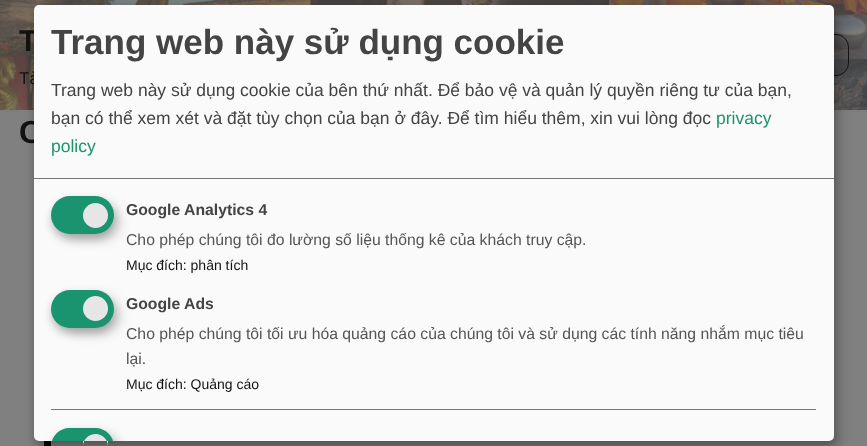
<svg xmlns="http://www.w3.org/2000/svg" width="867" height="446">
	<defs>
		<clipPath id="clip1"><rect x="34" y="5" width="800" height="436" rx="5" /></clipPath>
	</defs>
	<rect width="100%" height="100%" fill="#808080" />
	<rect x="0" y="-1" width="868" height="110" fill="#000000" fill-opacity="0.1" filter="blur(2px)" />
	<image x="0" y="0" width="867" height="110" href="assets/img1.png" />
	<text x="19" y="51" font-family="Liberation Sans" font-size="30" font-weight="700" fill="#141313">T</text>
	<text x="19" y="84" font-family="Liberation Sans" font-size="17" fill="#141313">Tà</text>
	<rect x="790.5" y="34.5" width="58" height="41" rx="12.5" fill="none" stroke="#141313" />
	<text x="19" y="143" font-family="Liberation Sans" font-size="32" font-weight="700" fill="#141313">C</text>
	<rect x="44" y="441" width="7" height="5" fill="#000000" />
	<rect x="40" y="11" width="800" height="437" rx="5" fill="#000000" fill-opacity="0.19" filter="blur(6px)" />
	<rect x="34" y="10" width="800" height="436" rx="5" fill="#000000" fill-opacity="0.2" filter="blur(4px)" />
	<rect x="34" y="5" width="800" height="436" rx="5" fill="#FAFAFA" />
	<rect x="34" y="178" width="800" height="1" fill="#777777" />
	<text x="51" y="54" font-family="Liberation Sans" font-size="35" font-weight="700" fill="#444444">Trang web này sử dụng cookie</text>
	<g font-family="Liberation Sans" font-size="17.5" fill="#444444">
		<text x="51" y="96">Trang web này sử dụng cookie của bên thứ nhất. Để bảo vệ và quản lý quyền riêng tư của bạn,</text>
		<text x="51" y="124">bạn có thể xem xét và đặt tùy chọn của bạn ở đây. Để tìm hiểu thêm, xin vui lòng đọc</text>
	</g>
	<g font-family="Liberation Sans" font-size="17.5" fill="#1A936F">
		<text x="716" y="124">privacy</text>
		<text x="51" y="152">policy</text>
	</g>
	<rect x="58" y="203" width="62" height="37" rx="18.5" fill="#000000" fill-opacity="0.19" filter="blur(6px)" />
	<rect x="51" y="201" width="63" height="38" rx="19" fill="#000000" fill-opacity="0.2" filter="blur(4px)" />
	<rect x="51" y="196" width="63" height="38" rx="19" fill="#1A936F" />
	<circle cx="95.5" cy="215.5" r="12.5" fill="#E6E6E6" />
	<text x="126" y="215" font-family="Liberation Sans" font-size="15.75" font-weight="700" fill="#444444">Google Analytics 4</text>
	<text x="126" y="245" font-family="Liberation Sans" font-size="15.75" fill="#555555">Cho phép chúng tôi đo lường số liệu thống kê của khách truy cập.</text>
	<text x="126" y="270" font-family="Liberation Sans" font-size="14" fill="#141313">Mục đích: phân tích</text>
	<rect x="58" y="296" width="62" height="38" rx="19" fill="#000000" fill-opacity="0.19" filter="blur(6px)" />
	<rect x="51" y="295" width="63" height="38" rx="19" fill="#000000" fill-opacity="0.2" filter="blur(4px)" />
	<rect x="51" y="290" width="63" height="38" rx="19" fill="#1A936F" />
	<circle cx="95.5" cy="308.5" r="12.5" fill="#E6E6E6" />
	<text x="126" y="309" font-family="Liberation Sans" font-size="15.75" font-weight="700" fill="#444444">Google Ads</text>
	<g font-family="Liberation Sans" font-size="15.75" fill="#555555">
		<text x="126" y="339">Cho phép chúng tôi tối ưu hóa quảng cáo của chúng tôi và sử dụng các tính năng nhắm mục tiêu</text>
		<text x="126" y="364">lại.</text>
	</g>
	<text x="126" y="389" font-family="Liberation Sans" font-size="14" fill="#141313">Mục đích: Quảng cáo</text>
	<rect x="51" y="409" width="765" height="1" fill="#777777" />
	<g clip-path="url(#clip1)">
		<rect x="58" y="434" width="62" height="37" rx="18.5" fill="#000000" fill-opacity="0.19" filter="blur(6px)" />
		<rect x="51" y="433" width="63" height="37" rx="18.5" fill="#000000" fill-opacity="0.2" filter="blur(4px)" />
	</g>
	<path d="M69.5 428H95.5C105.5 428 114 436.5 114 446.5V441H51V446.5C51 436.5 59.5 428 69.5 428Z" fill="#1A936F" />
	<path d="M95.5 434C102.5 434 108 439.5 108 446.5V441H83V446.5C83 439.5 88.5 434 95.5 434Z" fill="#E6E6E6" />
</svg>
